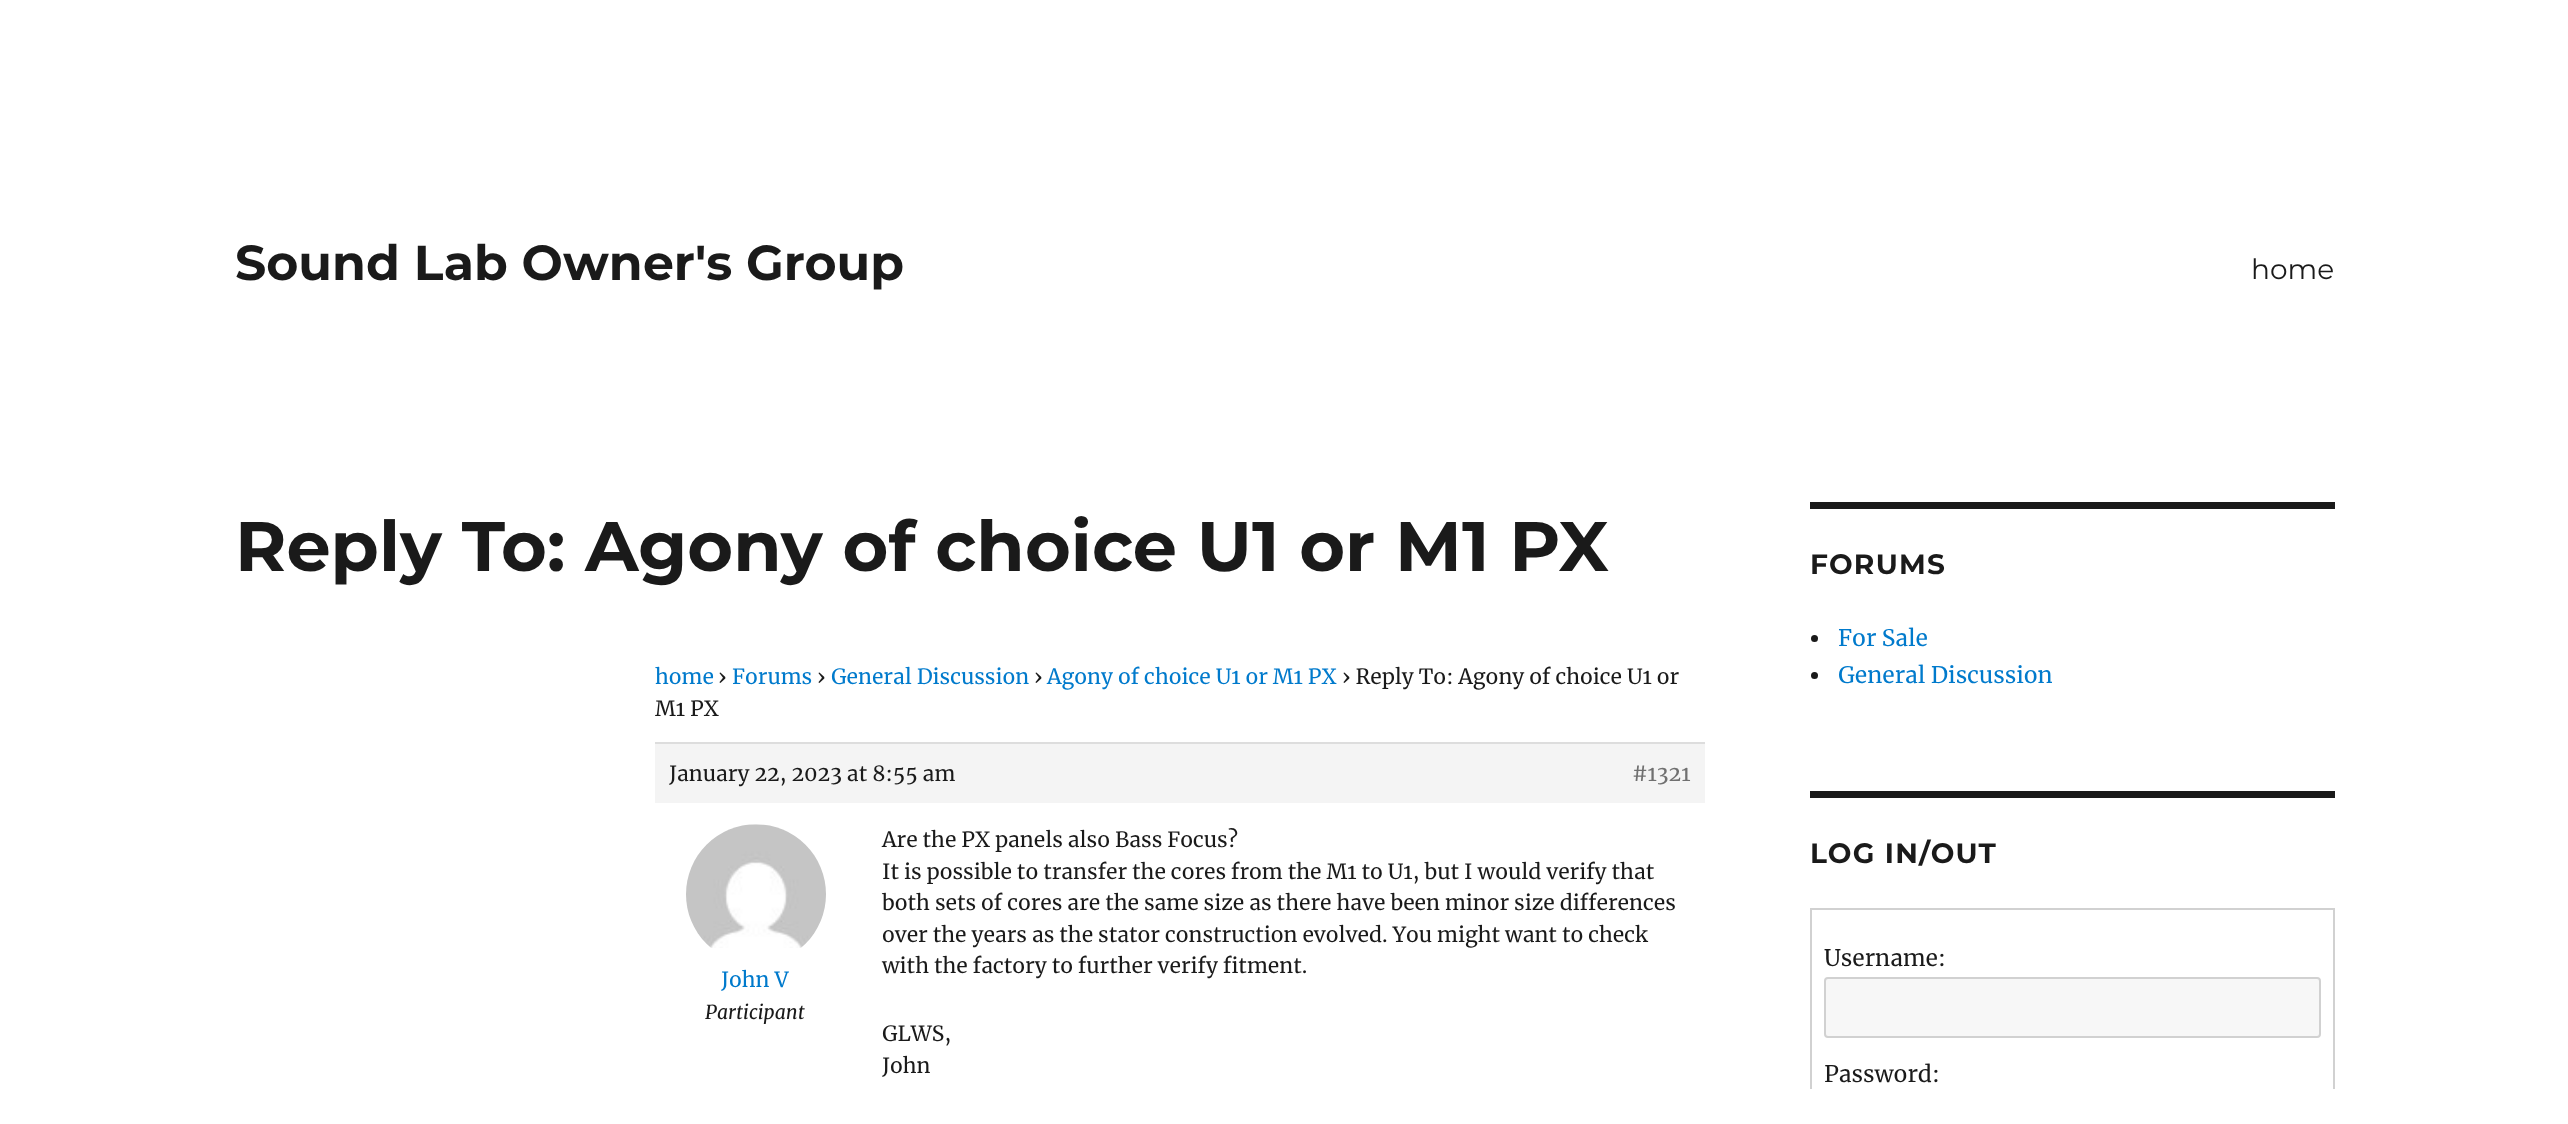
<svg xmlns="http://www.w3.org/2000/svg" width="2568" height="1124">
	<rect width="100%" height="100%" fill="#FFFFFF" />
	<text x="235" y="280" font-family="Montserrat" font-size="49" font-weight="100" fill="#1A1A1A">Sound Lab Owner's Group</text>
	<text x="2251" y="279" font-family="'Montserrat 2'" font-size="28" font-weight="100" fill="#1A1A1A">home</text>
	<text x="235" y="571" font-family="Montserrat" font-size="70" font-weight="100" fill="#1A1A1A">Reply To: Agony of choice U1 or M1 PX</text>
	<text x="655" y="684" font-family="Merriweather" font-size="21" fill="#007ACC">home</text>
	<text x="718" y="684" font-family="Merriweather" font-size="21" fill="#1A1A1A">›</text>
	<text x="732" y="684" font-family="Merriweather" font-size="21" fill="#007ACC">Forums</text>
	<text x="817" y="684" font-family="Merriweather" font-size="21" fill="#1A1A1A">›</text>
	<text x="831" y="684" font-family="Merriweather" font-size="21" fill="#007ACC">General Discussion</text>
	<text x="1034" y="684" font-family="Merriweather" font-size="21" fill="#1A1A1A">›</text>
	<text x="1047" y="684" font-family="Merriweather" font-size="21" fill="#007ACC">Agony of choice U1 or M1 PX</text>
	<g font-family="Merriweather" font-size="21" fill="#1A1A1A">
		<text x="1342" y="684">› Reply To: Agony of choice U1 or</text>
		<text x="655" y="716">M1 PX</text>
	</g>
	<rect x="655" y="744" width="1050" height="59" fill="#F4F4F4" />
	<rect x="655" y="742" width="1050" height="2" fill="#DDDDDD" />
	<text x="669" y="781" font-family="Merriweather" font-size="21" fill="#1A1A1A">January 22, 2023 at 8:55 am</text>
	<text x="1632" y="781" font-family="Merriweather" font-size="21" fill="#707070">#1321</text>
	<image x="686" y="824" width="140" height="124" href="assets/img1.png" />
	<text x="721" y="987" font-family="Merriweather" font-size="21" fill="#007ACC">John V</text>
	<text x="705" y="1019" font-family="Merriweather" font-size="19.25" font-style="italic" fill="#1A1A1A">Participant</text>
	<g font-family="Merriweather" font-size="21" fill="#1A1A1A">
		<text x="882" y="847">Are the PX panels also Bass Focus?</text>
		<text x="882" y="879">It is possible to transfer the cores from the M1 to U1, but I would verify that</text>
		<text x="882" y="910">both sets of cores are the same size as there have been minor size differences</text>
		<text x="882" y="942">over the years as the stator construction evolved. You might want to check</text>
		<text x="882" y="973">with the factory to further verify fitment.</text>
		<text x="882" y="1041">GLWS,</text>
		<text x="882" y="1073">John</text>
	</g>
	<rect x="1810" y="502" width="525" height="7" fill="#1A1A1A" />
	<text x="1810" y="574" font-family="Montserrat" font-size="28" font-weight="100" letter-spacing="1.25" fill="#1A1A1A">FORUMS</text>
	<circle cx="1814.5" cy="638.5" r="3.5" fill="#1A1A1A" />
	<text x="1838" y="646" font-family="Merriweather" font-size="22.75" fill="#007ACC">For Sale</text>
	<circle cx="1814.5" cy="675.5" r="3.5" fill="#1A1A1A" />
	<text x="1838" y="683" font-family="Merriweather" font-size="22.75" fill="#007ACC">General Discussion</text>
	<rect x="1810" y="791" width="525" height="7" fill="#1A1A1A" />
	<text x="1810" y="863" font-family="Montserrat" font-size="28" font-weight="100" letter-spacing="1.25" fill="#1A1A1A">LOG IN/OUT</text>
	<rect x="1811" y="909" width="523" height="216" fill="none" stroke="#D1D1D1" stroke-width="2" />
	<text x="1824" y="966" font-family="Merriweather" font-size="22.75" fill="#1A1A1A">Username:</text>
	<rect x="1825" y="978" width="495" height="59" rx="3" fill="#F7F7F7" stroke="#D1D1D1" stroke-width="2" />
	<text x="1824" y="1082" font-family="Merriweather" font-size="22.75" fill="#1A1A1A">Password:</text>
	<rect x="1810" y="1089" width="525" height="35" fill="#FFFFFF" />
</svg>
